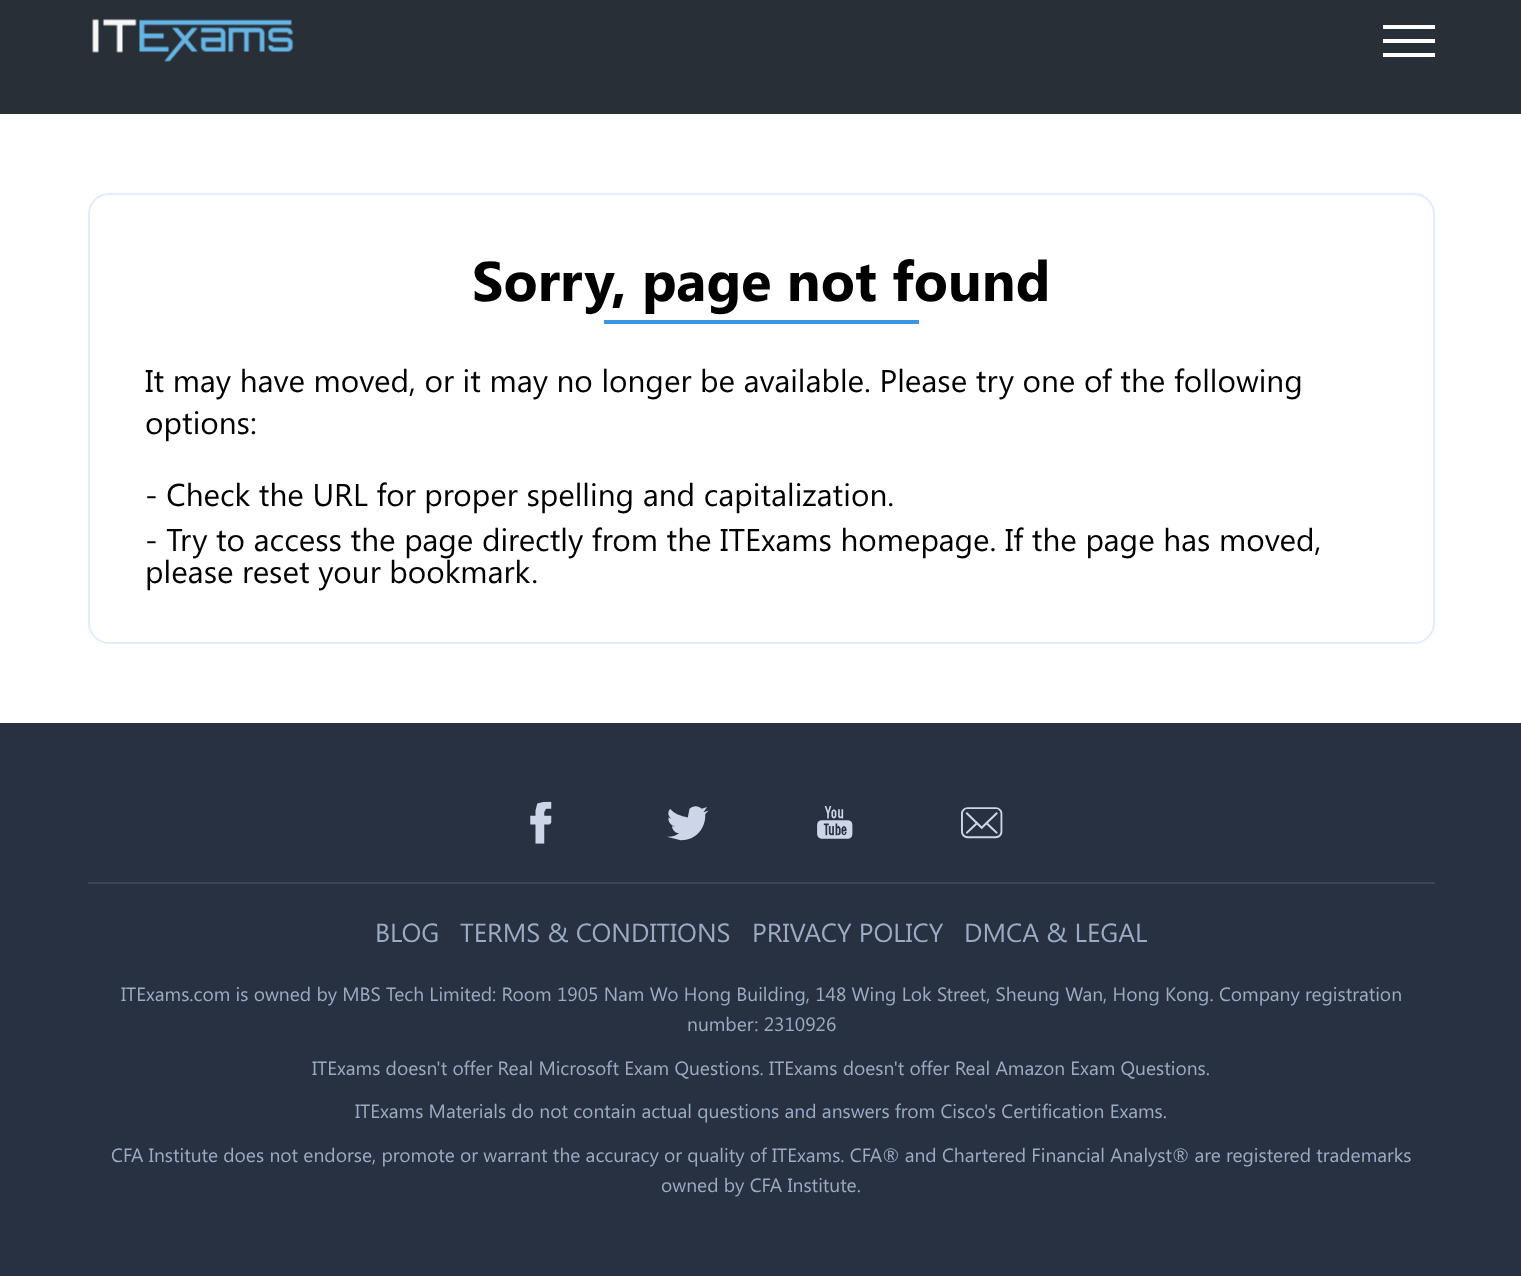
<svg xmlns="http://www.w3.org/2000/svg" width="1521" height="1276">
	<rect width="100%" height="100%" fill="#FFFFFF" />
	<rect x="0" y="0" width="1521" height="114" fill="#282F37" />
	<image x="92" y="18" width="202" height="44" href="assets/img1.png" />
	<rect x="1383" y="25" width="52" height="4" fill="#FFFFFF" />
	<rect x="1383" y="39" width="52" height="4" fill="#FFFFFF" />
	<rect x="1383" y="53" width="52" height="4" fill="#FFFFFF" />
	<rect x="89" y="194" width="1345" height="449" rx="20" fill="none" stroke="#E1ECFF" stroke-width="2" />
	<text x="472" y="301" font-family="Segoe UI" font-size="56" font-weight="700" fill="#000000">Sorry, page not found</text>
	<rect x="604" y="320" width="315" height="4" fill="#3B95E4" />
	<g font-family="Segoe UI" font-size="31.5" fill="#000000">
		<text x="145" y="392">It may have moved, or it may no longer be available. Please try one of the following</text>
		<text x="145" y="434">options:</text>
		<text x="145" y="506">- Check the URL for proper spelling and capitalization.</text>
		<text x="145" y="551">- Try to access the page directly from the ITExams homepage. If the page has moved,</text>
		<text x="145" y="583">please reset your bookmark.</text>
	</g>
	<rect x="0" y="723" width="1521" height="553" fill="#283142" />
	<image x="530" y="801" width="22" height="43" href="assets/img2.png" />
	<image x="667" y="806" width="42" height="35" href="assets/img3.png" />
	<image x="817" y="806" width="36" height="33" href="assets/img4.png" />
	<image x="961" y="807" width="42" height="32" href="assets/img5.png" />
	<rect x="88" y="882" width="1347" height="2" fill="#3A455A" />
	<g font-family="Segoe UI" font-size="26.25" fill="#9DAAC2">
		<text x="375" y="942">BLOG</text>
		<text x="460" y="942">TERMS &amp; CONDITIONS</text>
		<text x="752" y="942">PRIVACY POLICY</text>
		<text x="964" y="942">DMCA &amp; LEGAL</text>
	</g>
	<g font-family="Segoe UI" font-size="19.25" fill="#9DAAC2">
		<text x="121" y="1001">ITExams.com is owned by MBS Tech Limited: Room 1905 Nam Wo Hong Building, 148 Wing Lok Street, Sheung Wan, Hong Kong. Company registration</text>
		<text x="687" y="1031">number: 2310926</text>
		<text x="312" y="1075">ITExams doesn't offer Real Microsoft Exam Questions. ITExams doesn't offer Real Amazon Exam Questions.</text>
		<text x="355" y="1118">ITExams Materials do not contain actual questions and answers from Cisco's Certification Exams.</text>
		<text x="111" y="1162">CFA Institute does not endorse, promote or warrant the accuracy or quality of ITExams. CFA® and Chartered Financial Analyst® are registered trademarks</text>
		<text x="661" y="1192">owned by CFA Institute.</text>
	</g>
</svg>
